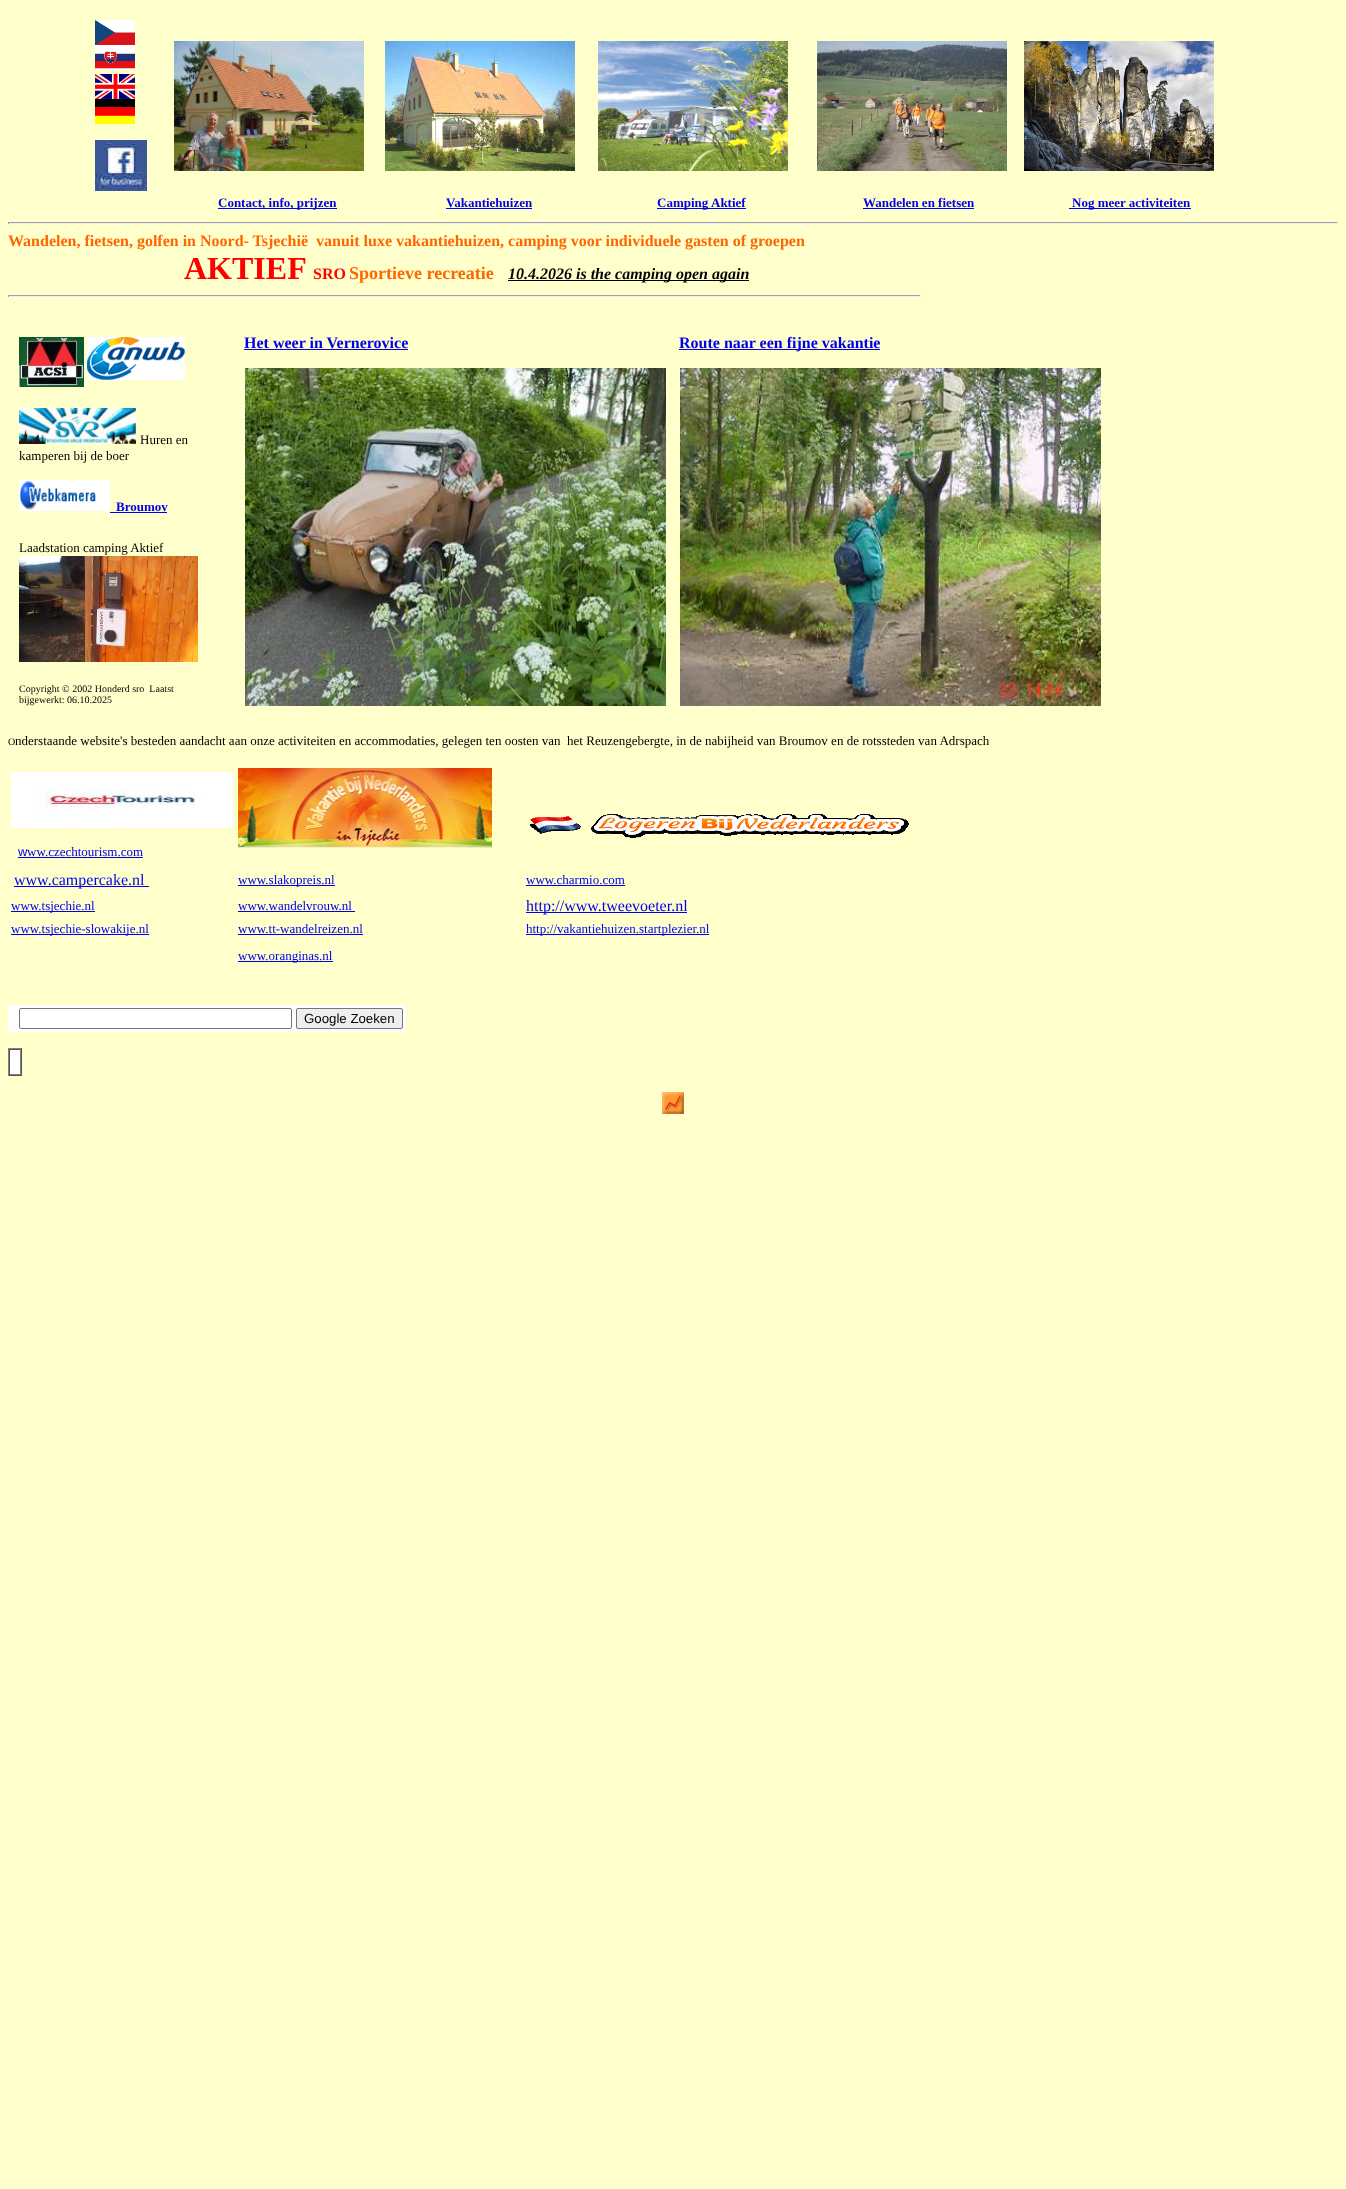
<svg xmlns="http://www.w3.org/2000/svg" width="1346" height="2189">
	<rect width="100%" height="100%" fill="#FFFFCC" />
	<image x="95" y="20" width="40" height="25" href="assets/img1.png" />
	<image x="95" y="45" width="40" height="25" href="assets/img2.png" />
	<image x="174" y="41" width="190" height="130" href="assets/img3.png" />
	<image x="385" y="41" width="190" height="130" href="assets/img4.png" />
	<image x="598" y="41" width="190" height="130" href="assets/img5.png" />
	<image x="817" y="41" width="190" height="130" href="assets/img6.png" />
	<image x="1024" y="41" width="190" height="130" href="assets/img7.png" />
	<image x="95" y="74" width="40" height="25" href="assets/img8.png" />
	<image x="95" y="99" width="40" height="25" href="assets/img9.png" />
	<image x="95" y="140" width="52" height="51" href="assets/img10.png" />
	<rect x="218" y="208" width="119" height="1" fill="#0000EE" />
	<g font-family="Liberation Serif" font-size="13" font-weight="700" fill="#0000EE">
		<text x="218" y="207">Contact, info, prijzen</text>
		<text x="446" y="207">Vakantiehuizen</text>
	</g>
	<rect x="446" y="208" width="86" height="1" fill="#0000EE" />
	<rect x="657" y="208" width="89" height="1" fill="#0000EE" />
	<g font-family="Liberation Serif" font-size="13" font-weight="700" fill="#0000EE">
		<text x="657" y="207">Camping</text>
		<text x="711" y="207">Aktief</text>
		<text x="863" y="207">Wandelen en fietsen</text>
	</g>
	<rect x="863" y="208" width="111" height="1" fill="#0000EE" />
	<rect x="1069" y="208" width="122" height="1" fill="#0000EE" />
	<text x="1072" y="207" font-family="Liberation Serif" font-size="13" font-weight="700" fill="#0000EE">Nog meer activiteiten</text>
	<rect x="8" y="222" width="1330" height="1" fill="#9F9F9F" />
	<rect x="1337" y="222" width="1" height="2" fill="#EEEEEE" />
	<rect x="8" y="223" width="1330" height="1" fill="#EEEEEE" />
	<rect x="8" y="222" width="1" height="2" fill="#9F9F9F" />
	<text x="8" y="246" font-family="Liberation Serif" font-size="16" font-weight="700" fill="#FF6600" xml:space="preserve">Wandelen, fietsen, golfen in Noord- Tsjechië  vanuit luxe vakantiehuizen, camping voor individuele gasten of groepen</text>
	<text x="184" y="279" font-family="Liberation Serif" font-size="32" font-weight="700" fill="#FF0000">AKTIEF</text>
	<text x="313" y="279" font-family="Liberation Serif" font-size="16" font-weight="700" fill="#FF0000">SRO</text>
	<text x="349" y="279" font-family="Liberation Serif" font-size="18" font-weight="700" fill="#FF6600">Sportieve recreatie</text>
	<rect x="508" y="280" width="241" height="1" fill="#000000" />
	<text x="508" y="279" font-family="Liberation Serif" font-size="16" font-weight="700" font-style="italic" fill="#000000">10.4.2026 is the camping open again</text>
	<rect x="8" y="295" width="913" height="1" fill="#9F9F9F" />
	<rect x="920" y="295" width="1" height="2" fill="#EEEEEE" />
	<rect x="8" y="296" width="913" height="1" fill="#EEEEEE" />
	<rect x="8" y="295" width="1" height="2" fill="#9F9F9F" />
	<image x="19" y="337" width="65" height="50" href="assets/img11.png" />
	<image x="87" y="337" width="98" height="43" href="assets/img12.png" />
	<text x="244" y="348" font-family="Liberation Serif" font-size="16" font-weight="700" fill="#0000EE">Het weer in Vernerovice</text>
	<rect x="244" y="349" width="164" height="1" fill="#0000EE" />
	<image x="245" y="368" width="421" height="338" href="assets/img13.png" />
	<rect x="679" y="349" width="201" height="1" fill="#0000EE" />
	<text x="679" y="348" font-family="Liberation Serif" font-size="16" font-weight="700" fill="#0000EE">Route naar een fijne vakantie</text>
	<image x="680" y="368" width="421" height="338" href="assets/img14.png" />
	<image x="19" y="408" width="117" height="36" href="assets/img15.png" />
	<g font-family="Liberation Serif" font-size="13" fill="#000000">
		<text x="140" y="444">Huren en</text>
		<text x="19" y="460">kamperen bij de boer</text>
	</g>
	<image x="19" y="480" width="91" height="31" href="assets/img16.png" />
	<text x="116" y="511" font-family="Liberation Serif" font-size="13" font-weight="700" fill="#0000EE">Broumov</text>
	<rect x="110" y="512" width="57" height="1" fill="#0000EE" />
	<text x="19" y="552" font-family="Liberation Serif" font-size="13" fill="#000000">Laadstation camping Aktief</text>
	<image x="19" y="556" width="179" height="106" href="assets/img17.png" />
	<g font-family="Liberation Serif" font-size="10" fill="#000000">
		<text x="19" y="692" xml:space="preserve">Copyright © 2002 Honderd sro  Laatst</text>
		<text x="19" y="703">bijgewerkt: 06.10.2025</text>
		<text x="8" y="745">O</text>
	</g>
	<text x="15" y="745" font-family="Liberation Serif" font-size="13" fill="#000000" xml:space="preserve">nderstaande website's besteden aandacht aan onze activiteiten en accommodaties, gelegen ten oosten van  het Reuzengebergte, in de nabijheid van Broumov en de rotssteden van Adrspach</text>
	<image x="238" y="768" width="254" height="80" href="assets/img18.png" />
	<image x="530" y="813" width="379" height="25" href="assets/img19.png" />
	<image x="11" y="772" width="222" height="56" href="assets/img20.png" />
	<text x="18" y="856" font-family="Liberation Sans" font-size="13" fill="#0000EE">w</text>
	<rect x="18" y="857" width="125" height="1" fill="#0000EE" />
	<text x="27" y="856" font-family="Liberation Serif" font-size="13" fill="#0000EE">ww.czechtourism.com</text>
	<rect x="14" y="886" width="135" height="1" fill="#0000EE" />
	<text x="14" y="885" font-family="Liberation Serif" font-size="16" fill="#0000EE">www.campercake.nl</text>
	<rect x="238" y="885" width="97" height="1" fill="#0000EE" />
	<g font-family="Liberation Serif" font-size="13" fill="#0000EE">
		<text x="238" y="884">www.slakopreis.nl</text>
		<text x="526" y="884">www.charmio.com</text>
	</g>
	<rect x="526" y="885" width="99" height="1" fill="#0000EE" />
	<rect x="11" y="911" width="84" height="1" fill="#0000EE" />
	<g font-family="Liberation Serif" font-size="13" fill="#0000EE">
		<text x="11" y="910">www.tsjechie.nl</text>
		<text x="238" y="910">www.wandelvrouw.nl</text>
	</g>
	<rect x="238" y="911" width="117" height="1" fill="#0000EE" />
	<rect x="526" y="912" width="161" height="1" fill="#0000EE" />
	<text x="526" y="911" font-family="Liberation Serif" font-size="16" fill="#0000EE">http://www.tweevoeter.nl</text>
	<rect x="11" y="934" width="138" height="1" fill="#0000EE" />
	<text x="11" y="933" font-family="Liberation Serif" font-size="13" fill="#0000FF">www.tsjechie-slowakije.nl</text>
	<text x="238" y="933" font-family="Liberation Serif" font-size="13" fill="#0000EE">www.tt-wandelreizen.nl</text>
	<rect x="238" y="934" width="125" height="1" fill="#0000EE" />
	<rect x="526" y="934" width="183" height="1" fill="#0000EE" />
	<text x="526" y="933" font-family="Liberation Serif" font-size="13" fill="#0000FF">http://vakantiehuizen.startplezier.nl</text>
	<rect x="238" y="961" width="95" height="1" fill="#0000EE" />
	<text x="238" y="960" font-family="Liberation Serif" font-size="13" fill="#0000EE">www.oranginas.nl</text>
	<rect x="8" y="1005" width="398" height="27" fill="#FFFFFF" />
	<rect x="19.5" y="1008.5" width="272" height="20" rx="1.5" fill="none" stroke="#767676" />
	<rect x="296.5" y="1008.5" width="106" height="20" rx="1.5" fill="#EFEFEF" stroke="#767676" />
	<text x="304" y="1023" font-family="Liberation Sans" font-size="13.25" fill="#000000">Google Zoeken</text>
	<rect x="10" y="1050" width="10" height="24" fill="#FFFFFF" />
	<rect x="8" y="1048" width="14" height="1" fill="#808080" />
	<rect x="21" y="1048" width="1" height="28" fill="#555555" />
	<rect x="8" y="1075" width="14" height="1" fill="#555555" />
	<rect x="8" y="1048" width="1" height="28" fill="#808080" />
	<rect x="9" y="1049" width="12" height="1" fill="#555555" />
	<rect x="20" y="1049" width="1" height="26" fill="#808080" />
	<rect x="9" y="1074" width="12" height="1" fill="#808080" />
	<rect x="9" y="1049" width="1" height="26" fill="#555555" />
	<image x="662" y="1092" width="22" height="22" href="assets/img21.png" />
</svg>
